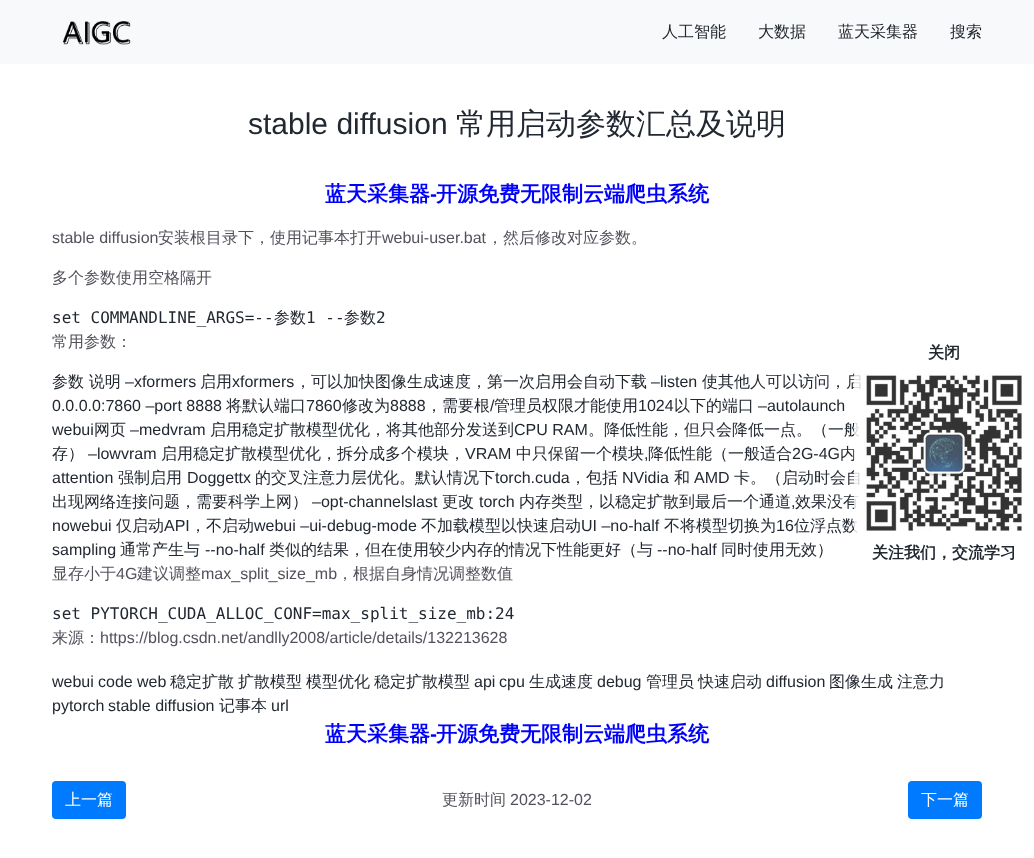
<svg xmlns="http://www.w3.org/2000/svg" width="1034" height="858">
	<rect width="100%" height="100%" fill="#FFFFFF" />
	<rect x="0" y="0" width="1034" height="64" fill="#F8F9FA" />
	<image x="62" y="21" width="69" height="24" href="assets/img1.png" />
	<g font-family="WenQuanYi Zen Hei" font-size="16" font-weight="500" fill="#222831">
		<text x="662" y="37">人工智能</text>
		<text x="758" y="37">大数据</text>
		<text x="838" y="37">蓝天采集器</text>
		<text x="950" y="37">搜索</text>
	</g>
	<text x="248" y="134" font-family="Liberation Sans" font-size="30" fill="#222831">stable diffusion</text>
	<text x="456" y="134" font-family="WenQuanYi Zen Hei" font-size="30" font-weight="500" fill="#222831">常用启动参数汇总及说明</text>
	<text x="325" y="201" font-family="WenQuanYi Zen Hei" font-size="21" font-weight="700" fill="#0000FF">蓝天采集器</text>
	<text x="430" y="201" font-family="Liberation Sans" font-size="21" font-weight="700" fill="#0000FF">-</text>
	<text x="436" y="201" font-family="WenQuanYi Zen Hei" font-size="21" font-weight="700" fill="#0000FF">开源免费无限制云端爬虫系统</text>
	<text x="52" y="243" font-family="Liberation Sans" font-size="16" fill="#52525C">stable diffusion</text>
	<text x="158" y="243" font-family="WenQuanYi Zen Hei" font-size="16" font-weight="500" fill="#52525C">安装根目录下，使用记事本打开</text>
	<text x="382" y="243" font-family="Liberation Sans" font-size="16" fill="#52525C">webui-user.bat</text>
	<g font-family="WenQuanYi Zen Hei" font-size="16" font-weight="500" fill="#52525C">
		<text x="487" y="243">，然后修改对应参数。</text>
		<text x="52" y="283">多个参数使用空格隔开</text>
	</g>
	<text x="52" y="323" font-family="DejaVu Sans Mono" font-size="16" fill="#222831">set COMMANDLINE_ARGS=--</text>
	<text x="274" y="323" font-family="WenQuanYi Zen Hei" font-size="16" font-weight="500" fill="#222831">参数</text>
	<text x="306" y="323" font-family="DejaVu Sans Mono" font-size="16" fill="#222831">1 --</text>
	<text x="344" y="323" font-family="WenQuanYi Zen Hei" font-size="16" font-weight="500" fill="#222831">参数</text>
	<text x="376" y="323" font-family="DejaVu Sans Mono" font-size="16" fill="#222831">2</text>
	<text x="52" y="347" font-family="WenQuanYi Zen Hei" font-size="16" font-weight="500" fill="#52525C">常用参数：</text>
	<text x="52" y="387" font-family="WenQuanYi Zen Hei" font-size="16" font-weight="500" fill="#222831">参数 说明</text>
	<text x="125" y="387" font-family="Liberation Sans" font-size="16" fill="#222831">–xformers</text>
	<text x="200" y="387" font-family="WenQuanYi Zen Hei" font-size="16" font-weight="500" fill="#222831">启用</text>
	<text x="232" y="387" font-family="Liberation Sans" font-size="16" fill="#222831">xformers</text>
	<text x="295" y="387" font-family="WenQuanYi Zen Hei" font-size="16" font-weight="500" fill="#222831">，可以加快图像生成速度，第一次启用会自动下载</text>
	<text x="651" y="387" font-family="Liberation Sans" font-size="16" fill="#222831">–listen</text>
	<text x="702" y="387" font-family="WenQuanYi Zen Hei" font-size="16" font-weight="500" fill="#222831">使其他人可以访问，启</text>
	<text x="52" y="411" font-family="Liberation Sans" font-size="16" fill="#222831">0.0.0.0:7860 –port 8888</text>
	<text x="226" y="411" font-family="WenQuanYi Zen Hei" font-size="16" font-weight="500" fill="#222831">将默认端口</text>
	<text x="306" y="411" font-family="Liberation Sans" font-size="16" fill="#222831">7860</text>
	<text x="342" y="411" font-family="WenQuanYi Zen Hei" font-size="16" font-weight="500" fill="#222831">修改为</text>
	<text x="390" y="411" font-family="Liberation Sans" font-size="16" fill="#222831">8888</text>
	<text x="426" y="411" font-family="WenQuanYi Zen Hei" font-size="16" font-weight="500" fill="#222831">，需要根</text>
	<text x="490" y="411" font-family="Liberation Sans" font-size="16" fill="#222831">/</text>
	<text x="494" y="411" font-family="WenQuanYi Zen Hei" font-size="16" font-weight="500" fill="#222831">管理员权限才能使用</text>
	<text x="638" y="411" font-family="Liberation Sans" font-size="16" fill="#222831">1024</text>
	<text x="674" y="411" font-family="WenQuanYi Zen Hei" font-size="16" font-weight="500" fill="#222831">以下的端口</text>
	<g font-family="Liberation Sans" font-size="16" fill="#222831">
		<text x="758" y="411">–autolaunch</text>
		<text x="52" y="435">webui</text>
	</g>
	<text x="94" y="435" font-family="WenQuanYi Zen Hei" font-size="16" font-weight="500" fill="#222831">网页</text>
	<text x="130" y="435" font-family="Liberation Sans" font-size="16" fill="#222831">–medvram</text>
	<text x="210" y="435" font-family="WenQuanYi Zen Hei" font-size="16" font-weight="500" fill="#222831">启用稳定扩散模型优化，将其他部分发送到</text>
	<text x="514" y="435" font-family="Liberation Sans" font-size="16" fill="#222831">CPU RAM</text>
	<g font-family="WenQuanYi Zen Hei" font-size="16" font-weight="500" fill="#222831">
		<text x="588" y="435">。降低性能，但只会降低一点。（一般</text>
		<text x="52" y="459">存）</text>
	</g>
	<text x="88" y="459" font-family="Liberation Sans" font-size="16" fill="#222831">–lowvram</text>
	<text x="161" y="459" font-family="WenQuanYi Zen Hei" font-size="16" font-weight="500" fill="#222831">启用稳定扩散模型优化，拆分成多个模块，</text>
	<text x="465" y="459" font-family="Liberation Sans" font-size="16" fill="#222831">VRAM</text>
	<g font-family="WenQuanYi Zen Hei" font-size="16" font-weight="500" fill="#222831">
		<text x="516" y="459">中只保留一个模块</text>
		<text x="648" y="459">降低性能（一般适合</text>
	</g>
	<text x="792" y="459" font-family="Liberation Sans" font-size="16" fill="#222831">2G-4G</text>
	<text x="840" y="459" font-family="WenQuanYi Zen Hei" font-size="16" font-weight="500" fill="#222831">内</text>
	<g font-family="Liberation Sans" font-size="16" fill="#222831">
		<text x="644" y="459">,</text>
		<text x="52" y="483">attention</text>
	</g>
	<text x="118" y="483" font-family="WenQuanYi Zen Hei" font-size="16" font-weight="500" fill="#222831">强制启用</text>
	<text x="187" y="483" font-family="Liberation Sans" font-size="16" fill="#222831">Doggettx</text>
	<text x="255" y="483" font-family="WenQuanYi Zen Hei" font-size="16" font-weight="500" fill="#222831">的交叉注意力层优化。默认情况下</text>
	<text x="495" y="483" font-family="Liberation Sans" font-size="16" fill="#222831">torch.cuda</text>
	<text x="570" y="483" font-family="WenQuanYi Zen Hei" font-size="16" font-weight="500" fill="#222831">，包括</text>
	<text x="622" y="483" font-family="Liberation Sans" font-size="16" fill="#222831">NVidia</text>
	<text x="674" y="483" font-family="WenQuanYi Zen Hei" font-size="16" font-weight="500" fill="#222831">和</text>
	<text x="694" y="483" font-family="Liberation Sans" font-size="16" fill="#222831">AMD</text>
	<g font-family="WenQuanYi Zen Hei" font-size="16" font-weight="500" fill="#222831">
		<text x="734" y="483">卡。（启动时会自</text>
		<text x="52" y="507">出现网络连接问题，需要科学上网）</text>
	</g>
	<text x="312" y="507" font-family="Liberation Sans" font-size="16" fill="#222831">–opt-channelslast</text>
	<text x="442" y="507" font-family="WenQuanYi Zen Hei" font-size="16" font-weight="500" fill="#222831">更改</text>
	<text x="479" y="507" font-family="Liberation Sans" font-size="16" fill="#222831">torch</text>
	<text x="519" y="507" font-family="WenQuanYi Zen Hei" font-size="16" font-weight="500" fill="#222831">内存类型，以稳定扩散到最后一个通道</text>
	<text x="791" y="507" font-family="Liberation Sans" font-size="16" fill="#222831">,</text>
	<text x="795" y="507" font-family="WenQuanYi Zen Hei" font-size="16" font-weight="500" fill="#222831">效果没有</text>
	<text x="52" y="531" font-family="Liberation Sans" font-size="16" fill="#222831">nowebui</text>
	<text x="116" y="531" font-family="WenQuanYi Zen Hei" font-size="16" font-weight="500" fill="#222831">仅启动</text>
	<text x="164" y="531" font-family="Liberation Sans" font-size="16" fill="#222831">API</text>
	<text x="190" y="531" font-family="WenQuanYi Zen Hei" font-size="16" font-weight="500" fill="#222831">，不启动</text>
	<text x="254" y="531" font-family="Liberation Sans" font-size="16" fill="#222831">webui –ui-debug-mode</text>
	<text x="421" y="531" font-family="WenQuanYi Zen Hei" font-size="16" font-weight="500" fill="#222831">不加载模型以快速启动</text>
	<text x="581" y="531" font-family="Liberation Sans" font-size="16" fill="#222831">UI –no-half</text>
	<text x="664" y="531" font-family="WenQuanYi Zen Hei" font-size="16" font-weight="500" fill="#222831">不将模型切换为</text>
	<text x="776" y="531" font-family="Liberation Sans" font-size="16" fill="#222831">16</text>
	<text x="794" y="531" font-family="WenQuanYi Zen Hei" font-size="16" font-weight="500" fill="#222831">位浮点数</text>
	<text x="52" y="555" font-family="Liberation Sans" font-size="16" fill="#222831">sampling</text>
	<text x="120" y="555" font-family="WenQuanYi Zen Hei" font-size="16" font-weight="500" fill="#222831">通常产生与</text>
	<text x="205" y="555" font-family="Liberation Sans" font-size="16" fill="#222831">--no-half</text>
	<text x="269" y="555" font-family="WenQuanYi Zen Hei" font-size="16" font-weight="500" fill="#222831">类似的结果，但在使用较少内存的情况下性能更好（与</text>
	<text x="657" y="555" font-family="Liberation Sans" font-size="16" fill="#222831">--no-half</text>
	<text x="721" y="555" font-family="WenQuanYi Zen Hei" font-size="16" font-weight="500" fill="#222831">同时使用无效）</text>
	<text x="52" y="579" font-family="WenQuanYi Zen Hei" font-size="16" font-weight="500" fill="#52525C">显存小于</text>
	<text x="116" y="579" font-family="Liberation Sans" font-size="16" fill="#52525C">4G</text>
	<text x="137" y="579" font-family="WenQuanYi Zen Hei" font-size="16" font-weight="500" fill="#52525C">建议调整</text>
	<text x="201" y="579" font-family="Liberation Sans" font-size="16" fill="#52525C">max_split_size_mb</text>
	<text x="337" y="579" font-family="WenQuanYi Zen Hei" font-size="16" font-weight="500" fill="#52525C">，根据自身情况调整数值</text>
	<text x="52" y="619" font-family="DejaVu Sans Mono" font-size="16" fill="#222831">set PYTORCH_CUDA_ALLOC_CONF=max_split_size_mb:24</text>
	<text x="52" y="643" font-family="WenQuanYi Zen Hei" font-size="16" font-weight="500" fill="#52525C">来源：</text>
	<text x="100" y="643" font-family="Liberation Sans" font-size="16" fill="#52525C">https://blog.csdn.net/andlly2008/article/details/132213628</text>
	<g font-family="Liberation Sans" font-size="16" fill="#222831">
		<text x="52" y="687">webui</text>
		<text x="98" y="687">code</text>
		<text x="137" y="687">web</text>
	</g>
	<g font-family="WenQuanYi Zen Hei" font-size="16" font-weight="500" fill="#222831">
		<text x="170" y="687">稳定扩散</text>
		<text x="238" y="687">扩散模型</text>
		<text x="306" y="687">模型优化</text>
		<text x="374" y="687">稳定扩散模型</text>
	</g>
	<g font-family="Liberation Sans" font-size="16" fill="#222831">
		<text x="474" y="687">api</text>
		<text x="499" y="687">cpu</text>
	</g>
	<text x="529" y="687" font-family="WenQuanYi Zen Hei" font-size="16" font-weight="500" fill="#222831">生成速度</text>
	<text x="597" y="687" font-family="Liberation Sans" font-size="16" fill="#222831">debug</text>
	<g font-family="WenQuanYi Zen Hei" font-size="16" font-weight="500" fill="#222831">
		<text x="646" y="687">管理员</text>
		<text x="698" y="687">快速启动</text>
	</g>
	<text x="766" y="687" font-family="Liberation Sans" font-size="16" fill="#222831">diffusion</text>
	<g font-family="WenQuanYi Zen Hei" font-size="16" font-weight="500" fill="#222831">
		<text x="829" y="687">图像生成</text>
		<text x="897" y="687">注意力</text>
	</g>
	<g font-family="Liberation Sans" font-size="16" fill="#222831">
		<text x="52" y="711">pytorch</text>
		<text x="108" y="711">stable diffusion</text>
	</g>
	<text x="219" y="711" font-family="WenQuanYi Zen Hei" font-size="16" font-weight="500" fill="#222831">记事本</text>
	<text x="271" y="711" font-family="Liberation Sans" font-size="16" fill="#222831">url</text>
	<text x="325" y="741" font-family="WenQuanYi Zen Hei" font-size="21" font-weight="700" fill="#0000FF">蓝天采集器</text>
	<text x="430" y="741" font-family="Liberation Sans" font-size="21" font-weight="700" fill="#0000FF">-</text>
	<text x="436" y="741" font-family="WenQuanYi Zen Hei" font-size="21" font-weight="700" fill="#0000FF">开源免费无限制云端爬虫系统</text>
	<rect x="52" y="781" width="74" height="38" rx="4" fill="#007BFF" />
	<text x="65" y="805" font-family="WenQuanYi Zen Hei" font-size="16" font-weight="500" fill="#FFFFFF">上一篇</text>
	<text x="442" y="805" font-family="WenQuanYi Zen Hei" font-size="16" font-weight="500" fill="#52525C">更新时间</text>
	<text x="510" y="805" font-family="Liberation Sans" font-size="16" fill="#52525C">2023-12-02</text>
	<rect x="908" y="781" width="74" height="38" rx="4" fill="#007BFF" />
	<text x="921" y="805" font-family="WenQuanYi Zen Hei" font-size="16" font-weight="500" fill="#FFFFFF">下一篇</text>
	<text x="928" y="358" font-family="WenQuanYi Zen Hei" font-size="16" font-weight="700" fill="#222831">关闭</text>
	<image x="854" y="373" width="168" height="162" href="assets/img2.png" />
	<text x="872" y="558" font-family="WenQuanYi Zen Hei" font-size="16" font-weight="700" fill="#222831">关注我们，交流学习</text>
</svg>
